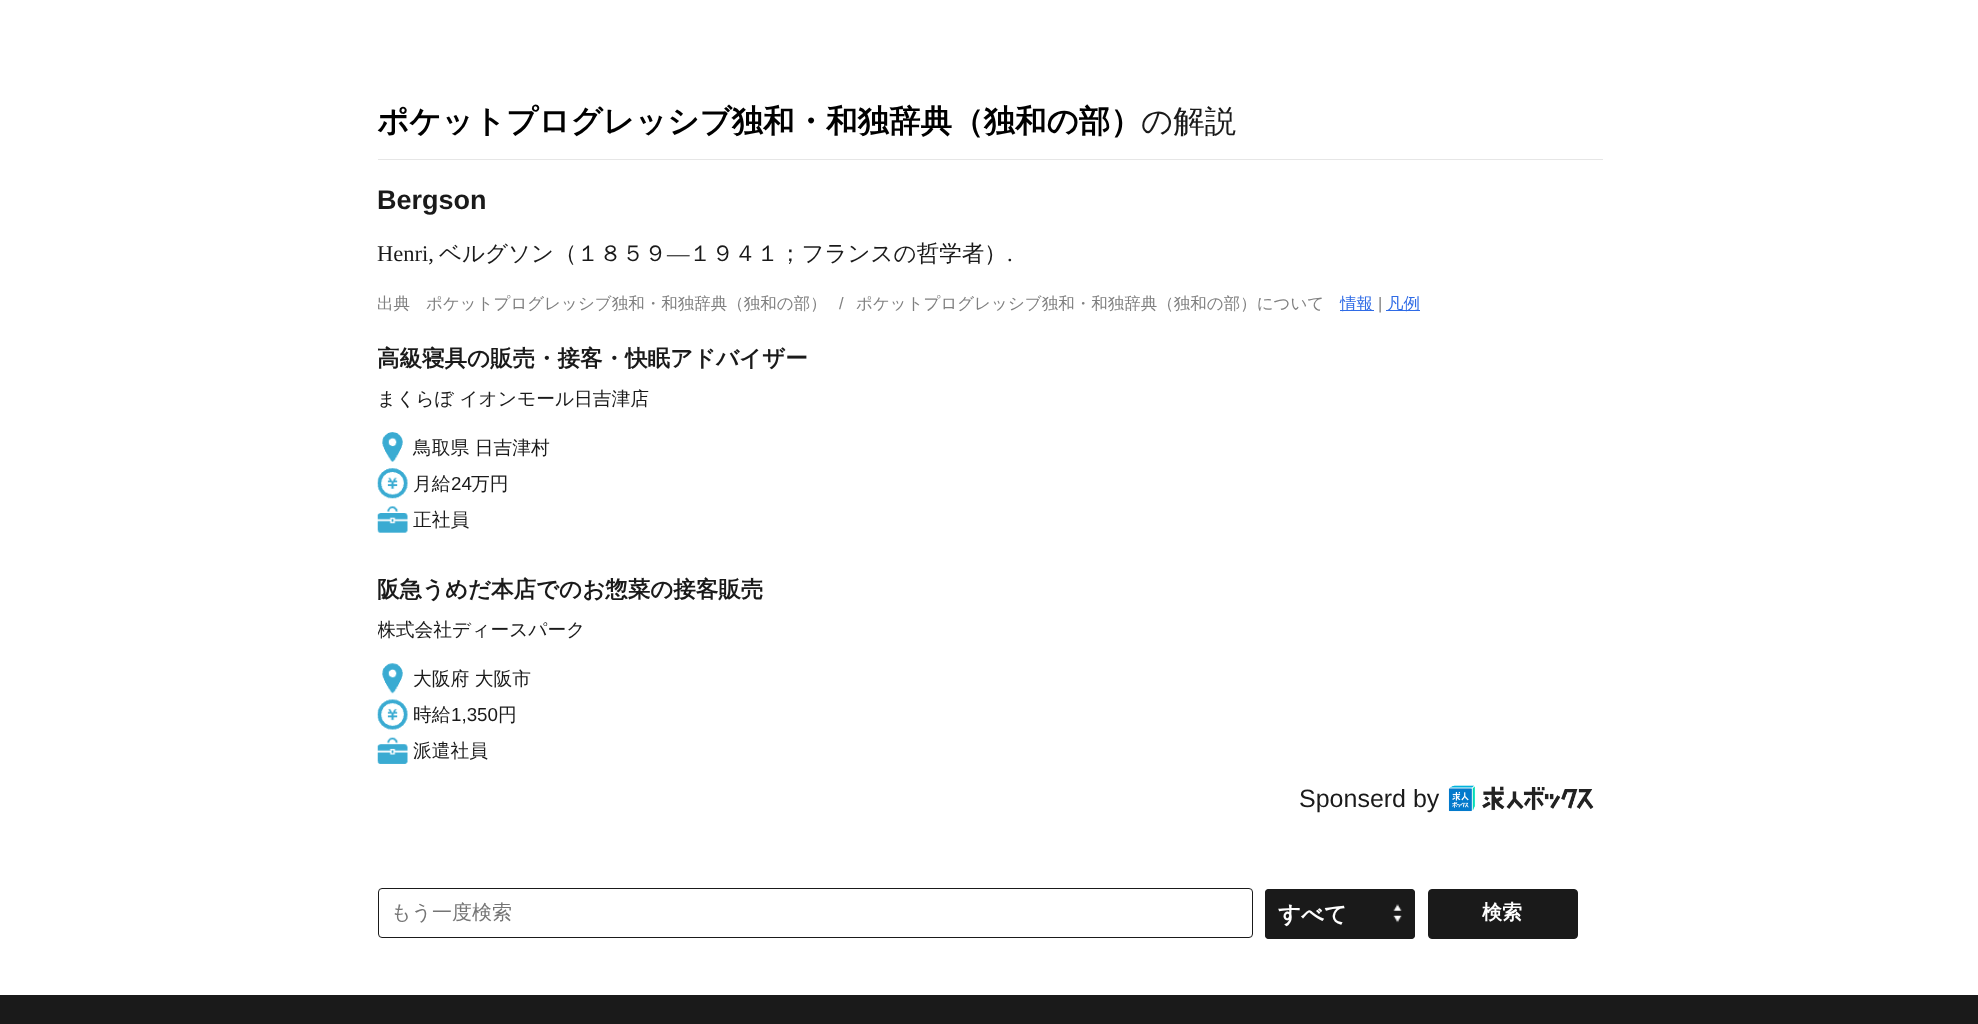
<svg xmlns="http://www.w3.org/2000/svg" width="1978" height="1024">
	<defs>
		<clipPath id="clip1"><rect x="378" y="0" width="1225" height="995" /></clipPath>
	</defs>
	<rect width="100%" height="100%" fill="#FFFFFF" />
	<rect x="378" y="159" width="1225" height="1" fill="#E6E6E6" />
	<text x="377" y="132" font-family="WenQuanYi Zen Hei" font-size="31.5" font-weight="700" fill="#000000">ポケットプログレッシブ独和・和独辞典（独和の部）</text>
	<text x="1141" y="132" font-family="WenQuanYi Zen Hei" font-size="31.5" font-weight="500" fill="#1A1A1A">の解説</text>
	<text x="377" y="209" font-family="Liberation Sans" font-size="27" font-weight="700" fill="#1A1A1A">Bergson</text>
	<text x="377" y="261" font-family="Liberation Serif" font-size="22.5" fill="#1A1A1A">Henri,</text>
	<text x="439" y="261" font-family="WenQuanYi Zen Hei" font-size="22.5" font-weight="500" fill="#1A1A1A">ベルグソン（１８５９</text>
	<text x="667" y="261" font-family="Liberation Serif" font-size="22.5" fill="#1A1A1A">―</text>
	<text x="689" y="261" font-family="WenQuanYi Zen Hei" font-size="22.5" font-weight="500" fill="#1A1A1A">１９４１；フランスの哲学者）</text>
	<text x="1007" y="261" font-family="Liberation Serif" font-size="22.5" fill="#1A1A1A">.</text>
	<g font-family="WenQuanYi Zen Hei" font-size="16.5" font-weight="500" fill="#808080">
		<text x="377" y="309">出典</text>
		<text x="426" y="309">ポケットプログレッシブ独和・和独辞典（独和の部）</text>
	</g>
	<text x="839" y="309" font-family="Liberation Sans" font-size="16.5" fill="#808080">/</text>
	<text x="856" y="309" font-family="WenQuanYi Zen Hei" font-size="16.5" font-weight="500" fill="#808080">ポケットプログレッシブ独和・和独辞典（独和の部）について</text>
	<rect x="1340" y="310" width="34" height="1" fill="#2F6BE6" />
	<text x="1340" y="309" font-family="WenQuanYi Zen Hei" font-size="16.5" font-weight="500" fill="#2F6BE6">情報</text>
	<text x="1378" y="309" font-family="Liberation Sans" font-size="16.5" fill="#808080">|</text>
	<rect x="1386" y="310" width="34" height="1" fill="#2F6BE6" />
	<text x="1387" y="309" font-family="WenQuanYi Zen Hei" font-size="16.5" font-weight="500" fill="#2F6BE6">凡例</text>
	<text x="377" y="366" font-family="WenQuanYi Zen Hei" font-size="22.5" font-weight="700" fill="#1A1A1A">高級寝具の販売・接客・快眠アドバイザー</text>
	<text x="377" y="405" font-family="WenQuanYi Zen Hei" font-size="18.75" font-weight="500" fill="#1A1A1A">まくらぼ イオンモール日吉津店</text>
	<image x="382" y="432" width="21" height="30" href="assets/img1.png" />
	<text x="413" y="454" font-family="WenQuanYi Zen Hei" font-size="18.75" font-weight="500" fill="#1A1A1A">鳥取県 日吉津村</text>
	<image x="377" y="468" width="31" height="31" href="assets/img2.png" />
	<text x="413" y="490" font-family="WenQuanYi Zen Hei" font-size="18.75" font-weight="500" fill="#1A1A1A">月給</text>
	<text x="451" y="490" font-family="Liberation Sans" font-size="18.75" fill="#1A1A1A">24</text>
	<text x="471" y="490" font-family="WenQuanYi Zen Hei" font-size="18.75" font-weight="500" fill="#1A1A1A">万円</text>
	<image x="377" y="506" width="31" height="27" href="assets/img3.png" />
	<text x="413" y="526" font-family="WenQuanYi Zen Hei" font-size="18.75" font-weight="500" fill="#1A1A1A">正社員</text>
	<text x="377" y="597" font-family="WenQuanYi Zen Hei" font-size="22.5" font-weight="700" fill="#1A1A1A">阪急うめだ本店でのお惣菜の接客販売</text>
	<g clip-path="url(#clip1)">
		<text x="377" y="636" font-family="WenQuanYi Zen Hei" font-size="18.75" font-weight="500" fill="#1A1A1A">株式会社ディースパーク</text>
	</g>
	<image x="382" y="663" width="21" height="31" href="assets/img4.png" />
	<text x="413" y="685" font-family="WenQuanYi Zen Hei" font-size="18.75" font-weight="500" fill="#1A1A1A">大阪府 大阪市</text>
	<image x="377" y="699" width="31" height="31" href="assets/img5.png" />
	<text x="413" y="721" font-family="WenQuanYi Zen Hei" font-size="18.75" font-weight="500" fill="#1A1A1A">時給</text>
	<text x="451" y="721" font-family="Liberation Sans" font-size="18.75" fill="#1A1A1A">1,350</text>
	<text x="498" y="721" font-family="WenQuanYi Zen Hei" font-size="18.75" font-weight="500" fill="#1A1A1A">円</text>
	<image x="377" y="737" width="31" height="27" href="assets/img6.png" />
	<text x="413" y="757" font-family="WenQuanYi Zen Hei" font-size="18.75" font-weight="500" fill="#1A1A1A">派遣社員</text>
	<text x="1299" y="807" font-family="Liberation Sans" font-size="25" fill="#1A1A1A">Sponserd by</text>
	<image x="1448" y="785" width="146" height="27" href="assets/img7.png" />
	<rect x="378.5" y="888.5" width="874" height="49" rx="3.5" fill="none" stroke="#1A1A1A" />
	<text x="391" y="919" font-family="WenQuanYi Zen Hei" font-size="20" font-weight="500" fill="#757575">もう一度検索</text>
	<rect x="1265" y="889" width="150" height="50" rx="4" fill="#1A1A1A" />
	<image x="1393" y="904" width="9" height="19" href="assets/img8.png" />
	<rect x="1265.5" y="889.5" width="149" height="49" rx="3.5" fill="none" stroke="#1A1A1A" />
	<text x="1278" y="922" font-family="WenQuanYi Zen Hei" font-size="22.5" font-weight="700" fill="#FFFFFF">すべて</text>
	<rect x="1428.5" y="889.5" width="149" height="49" rx="3.5" fill="#1A1A1A" stroke="#1A1A1A" />
	<text x="1482" y="919" font-family="WenQuanYi Zen Hei" font-size="20" font-weight="700" fill="#FFFFFF">検索</text>
	<rect x="0" y="995" width="1978" height="29" fill="#1A1A1A" />
</svg>
